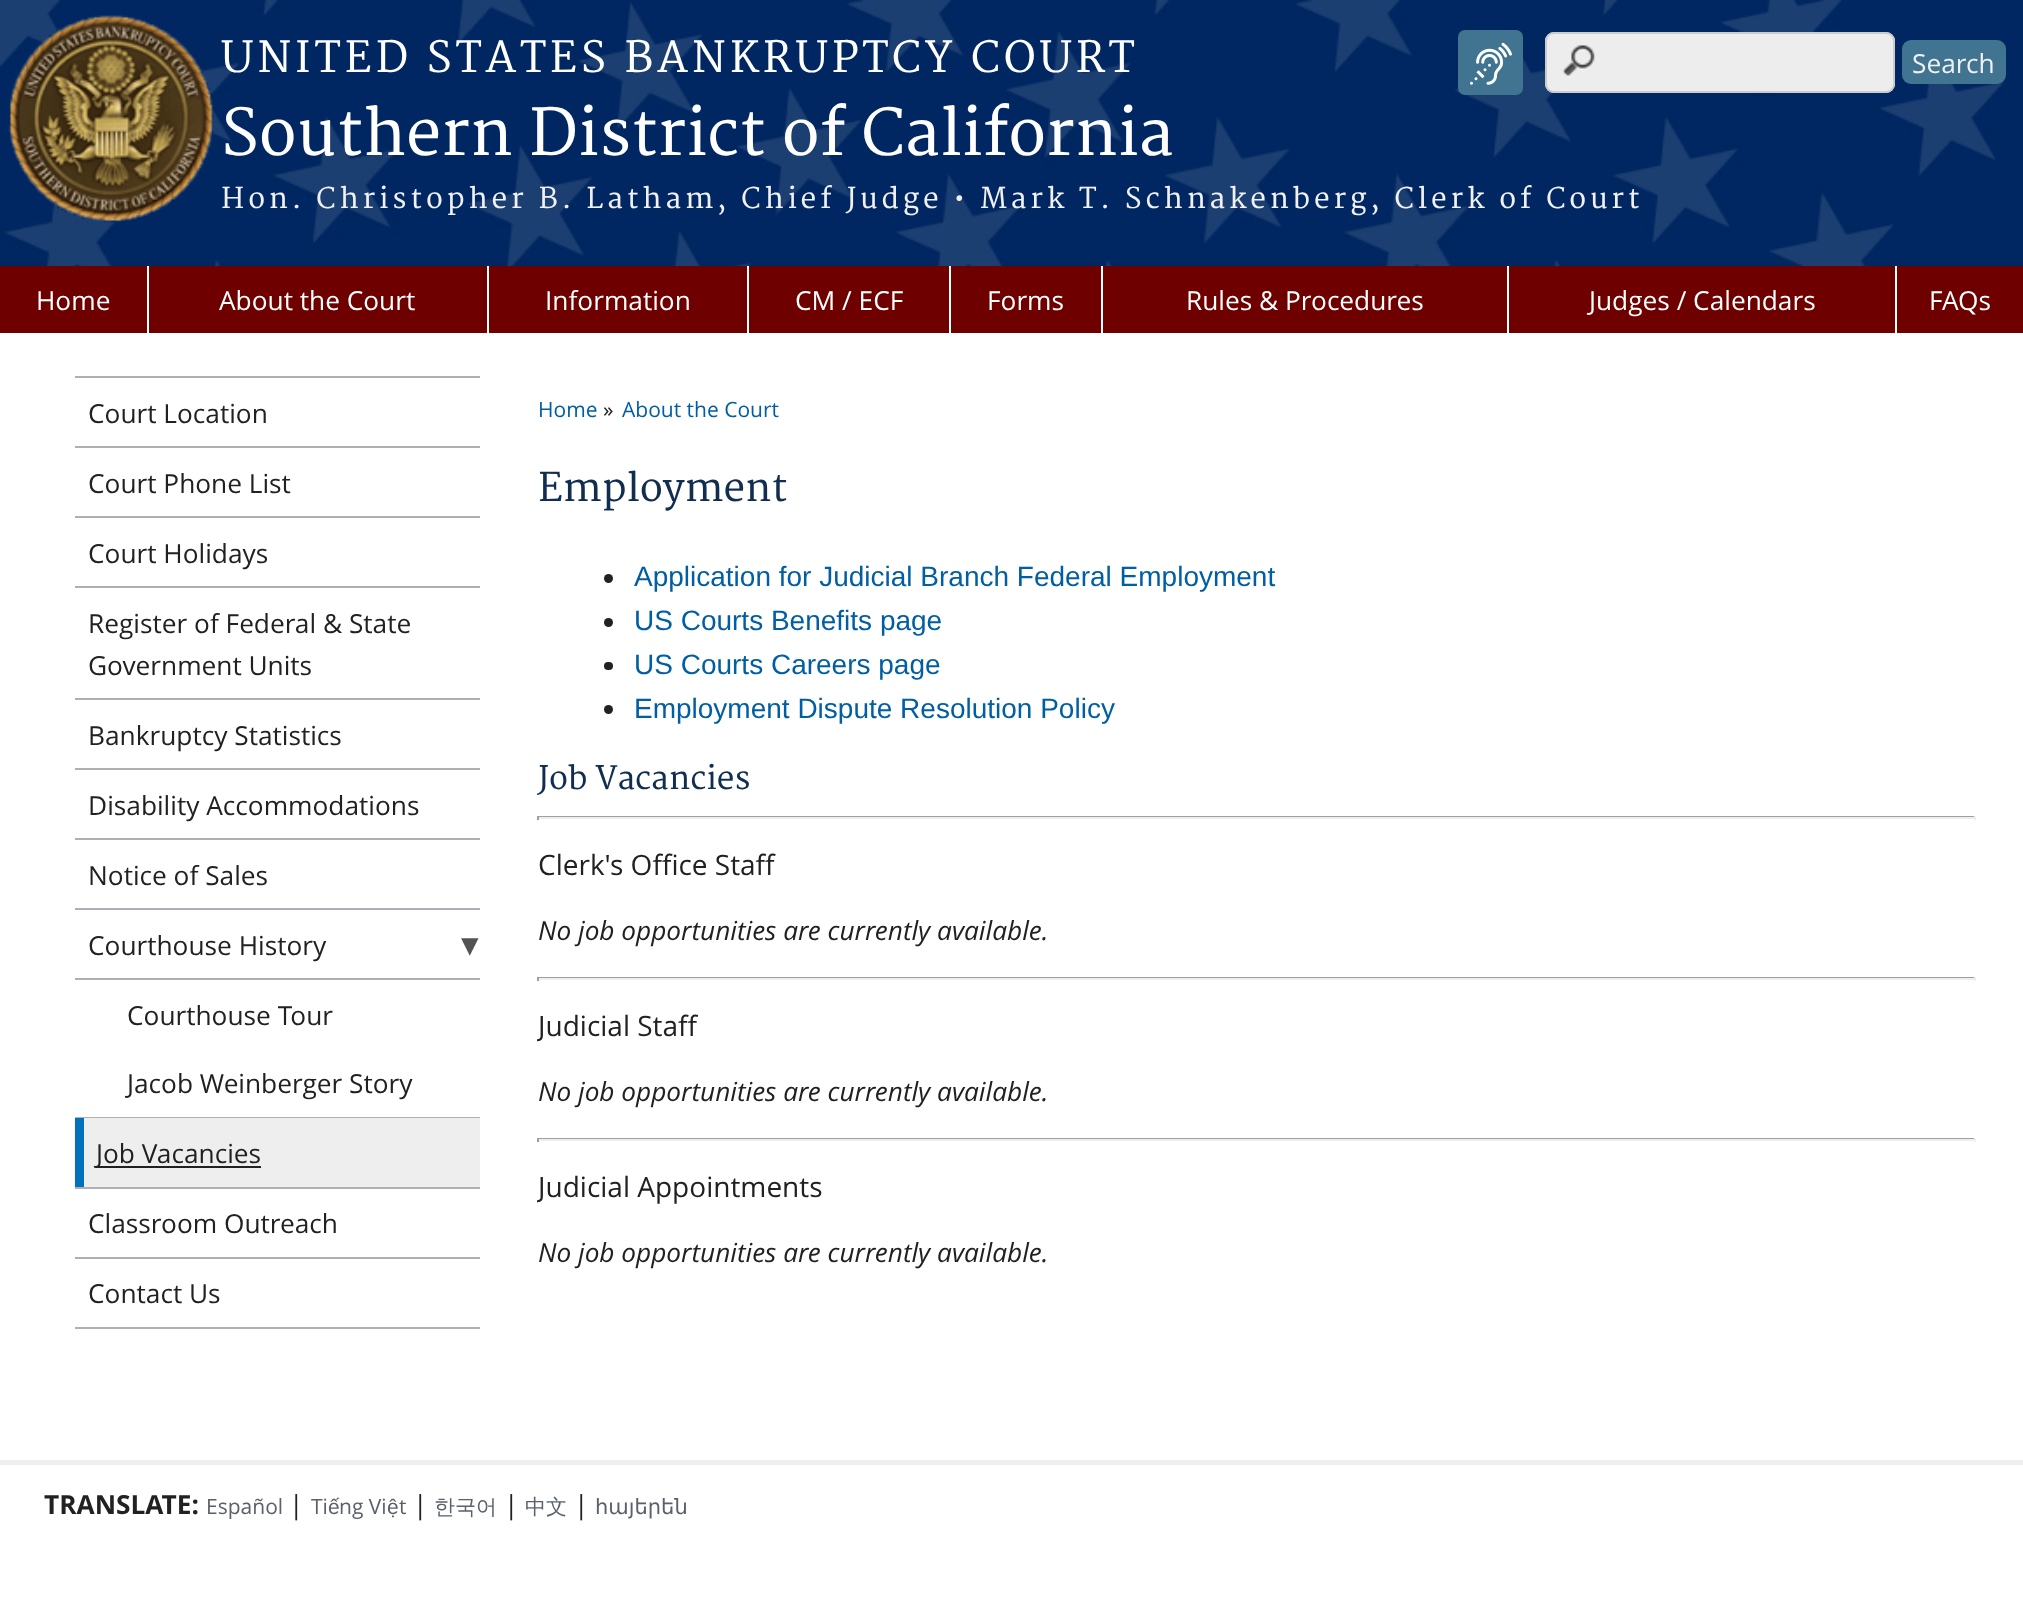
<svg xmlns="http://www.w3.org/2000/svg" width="2023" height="1612">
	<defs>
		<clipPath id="clip1"><rect x="537" y="529" width="1439" height="770" /></clipPath>
	</defs>
	<rect width="100%" height="100%" fill="#FFFFFF" />
	<rect x="2004" y="0" width="19" height="266" fill="#002761" />
	<image x="0" y="0" width="2004" height="266" href="assets/img1.png" />
	<image x="8" y="15" width="206" height="208" href="assets/img2.png" />
	<text x="221" y="72" font-family="Merriweather" font-size="42" letter-spacing="3.85" fill="#FFFFFF">UNITED STATES BANKRUPTCY COURT</text>
	<text x="221" y="155" font-family="Merriweather" font-size="63" fill="#FFFFFF">Southern District of California</text>
	<text x="221" y="208" font-family="Merriweather" font-size="28" letter-spacing="3.85" fill="#F1F1F1">Hon. Christopher B. Latham, Chief Judge • Mark T. Schnakenberg, Clerk of Court</text>
	<rect x="1458" y="30" width="65" height="65" rx="7" fill="#417491" />
	<image x="1470" y="42" width="42" height="43" href="assets/img3.png" />
	<rect x="1545" y="32" width="350" height="61" rx="9" fill="#EDEDED" />
	<image x="1562" y="45" width="33" height="32" href="assets/img4.png" />
	<rect x="1546" y="33" width="348" height="59" rx="8" fill="none" stroke="#CCCCCC" stroke-width="2" />
	<rect x="1902" y="40" width="104" height="44" rx="9" fill="#417491" />
	<text x="1912" y="73" font-family="Open Sans" font-size="26.25" fill="#F1F1F1">Search</text>
	<rect x="0" y="266" width="2023" height="67" fill="#6E0000" />
	<rect x="147" y="266" width="2" height="67" fill="#FFFFFF" />
	<text x="36" y="310" font-family="Open Sans" font-size="26.25" fill="#FFFFFF">Home</text>
	<rect x="487" y="266" width="2" height="67" fill="#FFFFFF" />
	<text x="219" y="310" font-family="Open Sans" font-size="26.25" fill="#FFFFFF">About the Court</text>
	<rect x="747" y="266" width="2" height="67" fill="#FFFFFF" />
	<text x="545" y="310" font-family="Open Sans" font-size="26.25" fill="#FFFFFF">Information</text>
	<rect x="949" y="266" width="2" height="67" fill="#FFFFFF" />
	<text x="795" y="310" font-family="Open Sans" font-size="26.25" fill="#FFFFFF">CM / ECF</text>
	<rect x="1101" y="266" width="2" height="67" fill="#FFFFFF" />
	<text x="987" y="310" font-family="Open Sans" font-size="26.25" fill="#FFFFFF">Forms</text>
	<rect x="1507" y="266" width="2" height="67" fill="#FFFFFF" />
	<text x="1186" y="310" font-family="Open Sans" font-size="26.25" fill="#FFFFFF">Rules &amp; Procedures</text>
	<rect x="1895" y="266" width="2" height="67" fill="#FFFFFF" />
	<g font-family="Open Sans" font-size="26.25" fill="#FFFFFF">
		<text x="1589" y="310">Judges / Calendars</text>
		<text x="1929" y="310">FAQs</text>
	</g>
	<rect x="75" y="376" width="405" height="2" fill="#AEB0B5" />
	<text x="88" y="423" font-family="Open Sans" font-size="26.25" fill="#212121">Court Location</text>
	<rect x="75" y="446" width="405" height="2" fill="#AEB0B5" />
	<text x="88" y="493" font-family="Open Sans" font-size="26.25" fill="#212121">Court Phone List</text>
	<rect x="75" y="516" width="405" height="2" fill="#AEB0B5" />
	<text x="88" y="563" font-family="Open Sans" font-size="26.25" fill="#212121">Court Holidays</text>
	<rect x="75" y="586" width="405" height="2" fill="#AEB0B5" />
	<g font-family="Open Sans" font-size="26.25" fill="#212121">
		<text x="88" y="633">Register of Federal &amp; State</text>
		<text x="88" y="675">Government Units</text>
	</g>
	<rect x="75" y="698" width="405" height="2" fill="#AEB0B5" />
	<text x="88" y="745" font-family="Open Sans" font-size="26.25" fill="#212121">Bankruptcy Statistics</text>
	<rect x="75" y="768" width="405" height="2" fill="#AEB0B5" />
	<text x="88" y="815" font-family="Open Sans" font-size="26.25" fill="#212121">Disability Accommodations</text>
	<rect x="75" y="838" width="405" height="2" fill="#AEB0B5" />
	<text x="88" y="885" font-family="Open Sans" font-size="26.25" fill="#212121">Notice of Sales</text>
	<rect x="75" y="908" width="405" height="2" fill="#AEB0B5" />
	<text x="88" y="955" font-family="Open Sans" font-size="26.25" fill="#212121">Courthouse History</text>
	<text x="461" y="956" font-family="DejaVu Sans" font-size="35" fill="#535353">▾</text>
	<rect x="75" y="978" width="405" height="2" fill="#AEB0B5" />
	<g font-family="Open Sans" font-size="26.25" fill="#212121">
		<text x="127" y="1025">Courthouse Tour</text>
		<text x="127" y="1093">Jacob Weinberger Story</text>
	</g>
	<rect x="75" y="1117" width="405" height="1" fill="#AEB0B5" />
	<rect x="84" y="1118" width="396" height="69" fill="#EEEEEE" />
	<rect x="75" y="1118" width="9" height="69" fill="#0071BC" />
	<rect x="96" y="1166" width="165" height="2" fill="#212121" />
	<text x="96" y="1163" font-family="Open Sans" font-size="26.25" fill="#212121">Job Vacancies</text>
	<rect x="75" y="1187" width="405" height="2" fill="#AEB0B5" />
	<text x="88" y="1233" font-family="Open Sans" font-size="26.25" fill="#212121">Classroom Outreach</text>
	<rect x="75" y="1257" width="405" height="2" fill="#AEB0B5" />
	<rect x="75" y="1327" width="405" height="2" fill="#AEB0B5" />
	<text x="88" y="1303" font-family="Open Sans" font-size="26.25" fill="#212121">Contact Us</text>
	<text x="538" y="417" font-family="Open Sans" font-size="21" fill="#005EA2">Home</text>
	<text x="603" y="417" font-family="Open Sans" font-size="21" fill="#212121">»</text>
	<text x="622" y="417" font-family="Open Sans" font-size="21" fill="#005EA2">About the Court</text>
	<text x="538" y="501" font-family="Merriweather" font-size="38.5" fill="#112E51">Employment</text>
	<circle cx="608.5" cy="578.5" r="4.5" fill="#212121" />
	<text x="634" y="586" font-family="Liberation Sans" font-size="28" fill="#005EA2">Application for Judicial Branch Federal Employment</text>
	<circle cx="608.5" cy="622.5" r="4.5" fill="#212121" />
	<text x="634" y="630" font-family="Liberation Sans" font-size="28" fill="#005EA2">US Courts Benefits page</text>
	<rect x="604" y="662" width="9" height="8" rx="4" fill="#212121" />
	<text x="634" y="674" font-family="Liberation Sans" font-size="28" fill="#005EA2">US Courts Careers page</text>
	<circle cx="608.5" cy="709.5" r="4.5" fill="#212121" />
	<text x="634" y="718" font-family="Liberation Sans" font-size="28" fill="#005EA2">Employment Dispute Resolution Policy</text>
	<text x="538" y="789" font-family="Merriweather" font-size="31.5" fill="#112E51">Job Vacancies</text>
	<rect x="537" y="816" width="1439" height="1" fill="#9F9F9F" />
	<rect x="1974" y="816" width="2" height="4" fill="#EEEEEE" />
	<rect x="537" y="817" width="1439" height="2" fill="#EEEEEE" />
	<rect x="537" y="816" width="2" height="4" fill="#9F9F9F" />
	<text x="538" y="875" font-family="Open Sans" font-size="28" fill="#212121">Clerk's Office Staff</text>
	<text x="538" y="940" font-family="Open Sans" font-size="26.25" font-style="italic" fill="#212121">No job opportunities are currently available.</text>
	<rect x="537" y="977" width="1439" height="1" fill="#9F9F9F" />
	<rect x="1974" y="977" width="2" height="4" fill="#EEEEEE" />
	<rect x="537" y="978" width="1439" height="2" fill="#EEEEEE" />
	<rect x="537" y="977" width="2" height="4" fill="#9F9F9F" />
	<g clip-path="url(#clip1)">
		<text x="538" y="1036" font-family="Open Sans" font-size="28" fill="#212121">Judicial Staff</text>
	</g>
	<text x="538" y="1101" font-family="Open Sans" font-size="26.25" font-style="italic" fill="#212121">No job opportunities are currently available.</text>
	<rect x="537" y="1138" width="1439" height="1" fill="#9F9F9F" />
	<rect x="1974" y="1138" width="2" height="4" fill="#EEEEEE" />
	<rect x="537" y="1139" width="1439" height="2" fill="#EEEEEE" />
	<rect x="537" y="1138" width="2" height="4" fill="#9F9F9F" />
	<g clip-path="url(#clip1)">
		<text x="538" y="1197" font-family="Open Sans" font-size="28" fill="#212121">Judicial Appointments</text>
	</g>
	<text x="538" y="1262" font-family="Open Sans" font-size="26.25" font-style="italic" fill="#212121">No job opportunities are currently available.</text>
	<rect x="0" y="1460" width="2023" height="5" fill="#EEEEEE" />
	<text x="44" y="1514" font-family="Open Sans" font-size="26.25" font-weight="700" fill="#212121">TRANSLATE:</text>
	<text x="206" y="1514" font-family="Open Sans" font-size="21" fill="#5B616B">Español</text>
	<text x="289" y="1514" font-family="Open Sans" font-size="26.25" fill="#212121">|</text>
	<text x="311" y="1514" font-family="Open Sans" font-size="21" fill="#5B616B">Ti</text>
	<text x="328" y="1514" font-family="Liberation Sans" font-size="21" fill="#5B616B">ế</text>
	<text x="339" y="1514" font-family="Open Sans" font-size="21" fill="#5B616B">ng Vi</text>
	<text x="387" y="1514" font-family="Liberation Sans" font-size="21" fill="#5B616B">ệ</text>
	<text x="399" y="1514" font-family="Open Sans" font-size="21" fill="#5B616B">t</text>
	<text x="413" y="1514" font-family="Open Sans" font-size="26.25" fill="#212121">|</text>
	<text x="434" y="1514" font-family="WenQuanYi Zen Hei" font-size="21" font-weight="500" fill="#5B616B">한국어</text>
	<text x="504" y="1514" font-family="Open Sans" font-size="26.25" fill="#212121">|</text>
	<text x="525" y="1514" font-family="WenQuanYi Zen Hei" font-size="21" font-weight="500" fill="#5B616B">中文</text>
	<text x="574" y="1514" font-family="Open Sans" font-size="26.25" fill="#212121">|</text>
	<text x="595" y="1514" font-family="DejaVu Sans" font-size="21" fill="#5B616B">հայերեն</text>
</svg>
